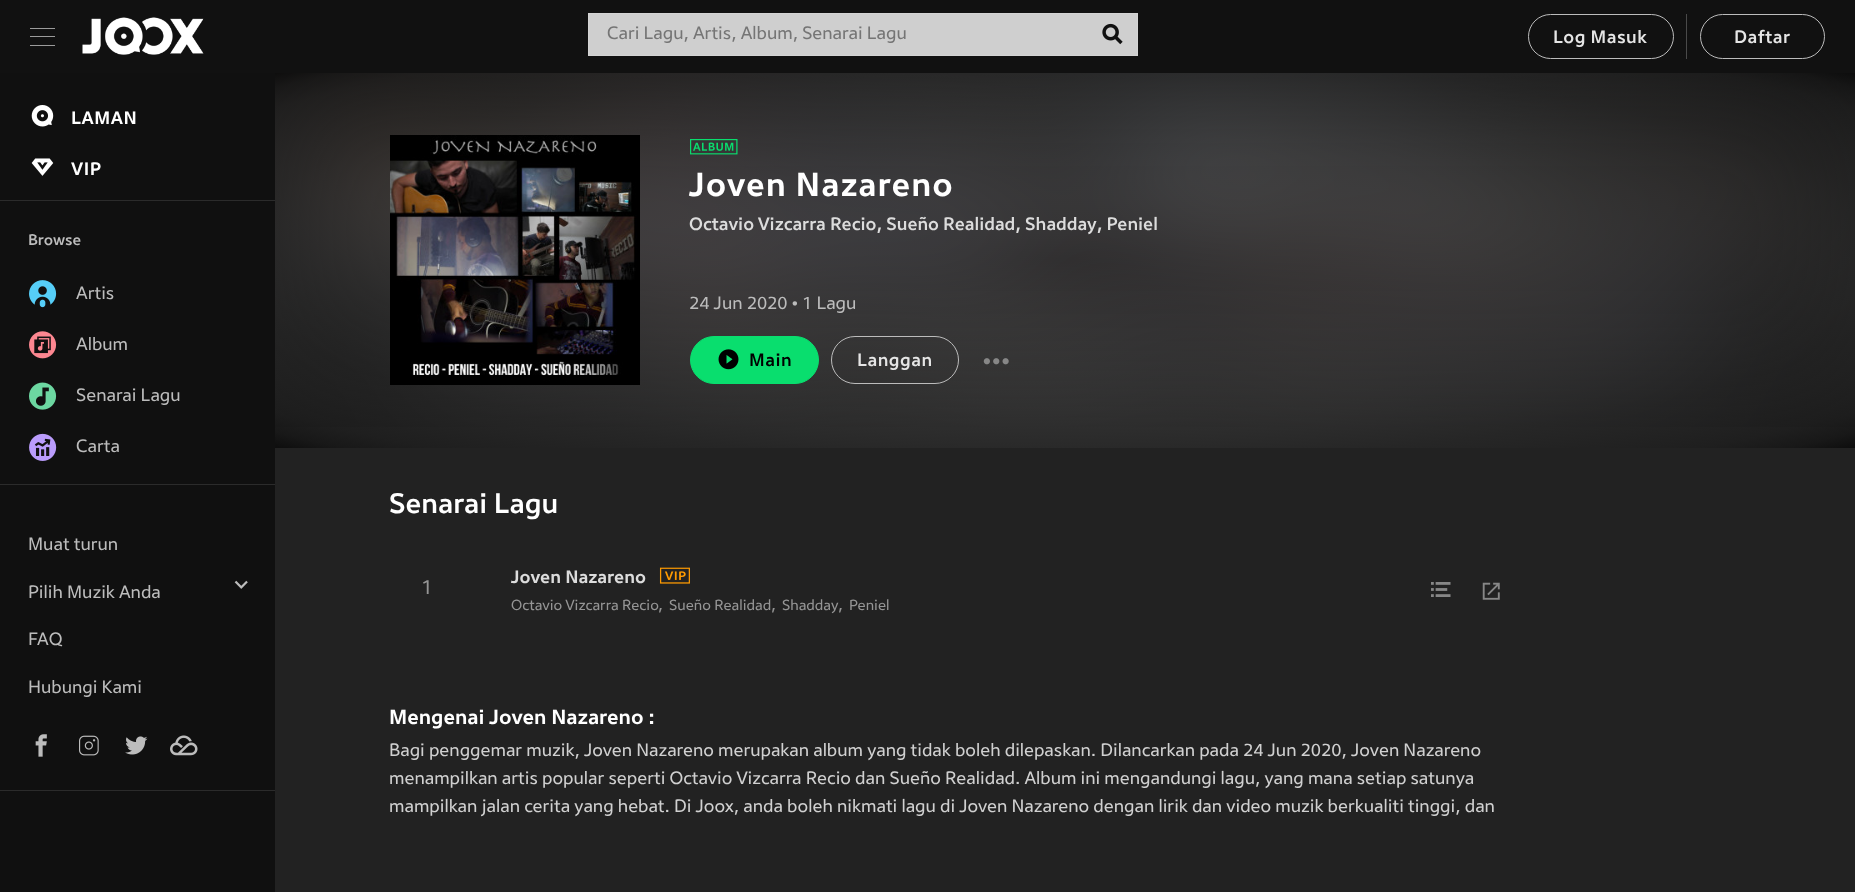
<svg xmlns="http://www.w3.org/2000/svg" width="1855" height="892">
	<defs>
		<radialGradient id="g1" gradientUnits="userSpaceOnUse" cx="0" cy="0" r="1" gradientTransform="matrix(1117 0 0 265 1065 260)"><stop offset="0" stop-color="#999999" stop-opacity="0.11" /><stop offset="0.01" stop-color="#999999" stop-opacity="0.11" /><stop offset="0.76" stop-color="#2B2B2B" stop-opacity="0.48" /><stop offset="0.91" stop-color="#1C1C1C" stop-opacity="0.56" /><stop offset="0.96" stop-color="#111111" stop-opacity="0.58" /><stop offset="1" stop-color="#000000" stop-opacity="0.6" /></radialGradient>
	</defs>
	<rect width="100%" height="100%" fill="#222222" />
	<rect x="0" y="0" width="1855" height="73" fill="#111111" />
	<rect x="30" y="28" width="25" height="1" fill="#9B9B9B" />
	<rect x="30" y="36" width="25" height="1" fill="#9B9B9B" />
	<rect x="30" y="45" width="25" height="1" fill="#9B9B9B" />
	<image x="82" y="17" width="122" height="38" href="assets/img1.png" />
	<rect x="588.5" y="13.5" width="549" height="42" fill="#CFCFCF" stroke="#D4D4D4" />
	<text x="607" y="39" font-family="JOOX" font-size="17.5" fill="#757575">Cari Lagu, Artis, Album, Senarai Lagu</text>
	<image x="1102" y="23" width="21" height="22" href="assets/img2.png" />
	<rect x="1528.5" y="14.5" width="145" height="44" rx="22" fill="none" stroke="#BCBCBC" />
	<text x="1553" y="43" font-family="JOOX" font-size="17.5" font-weight="500" letter-spacing="0.5" fill="#E5E5E5">Log Masuk</text>
	<rect x="1686" y="14" width="1" height="45" fill="#4A4A4A" />
	<rect x="1700.5" y="14.5" width="124" height="44" rx="22" fill="none" stroke="#BCBCBC" />
	<text x="1734" y="43" font-family="JOOX" font-size="17.5" font-weight="500" letter-spacing="0.5" fill="#E5E5E5">Daftar</text>
	<rect x="0" y="73" width="275" height="819" fill="#101010" />
	<rect x="0" y="200" width="275" height="1" fill="#2B2B2B" />
	<image x="31" y="105" width="23" height="22" href="assets/img3.png" />
	<text x="71" y="124" font-family="JOOX" font-size="17.5" font-weight="700" letter-spacing="0.5" fill="#FFFFFF">LAMAN</text>
	<image x="31" y="158" width="23" height="18" href="assets/img4.png" />
	<text x="71" y="175" font-family="JOOX" font-size="17.5" font-weight="700" letter-spacing="0.5" fill="#FFFFFF">VIP</text>
	<rect x="0" y="484" width="275" height="1" fill="#2B2B2B" />
	<text x="28" y="245" font-family="JOOX" font-size="15" font-weight="500" fill="#BCBCBC">Browse</text>
	<image x="29" y="280" width="28" height="28" href="assets/img5.png" />
	<text x="76" y="299" font-family="JOOX" font-size="17.5" fill="#BCBCBC">Artis</text>
	<image x="29" y="331" width="28" height="28" href="assets/img6.png" />
	<text x="76" y="350" font-family="JOOX" font-size="17.5" fill="#BCBCBC">Album</text>
	<image x="29" y="382" width="28" height="28" href="assets/img7.png" />
	<text x="76" y="401" font-family="JOOX" font-size="17.5" fill="#BCBCBC">Senarai Lagu</text>
	<image x="29" y="433" width="28" height="28" href="assets/img8.png" />
	<text x="76" y="452" font-family="JOOX" font-size="17.5" fill="#BCBCBC">Carta</text>
	<rect x="0" y="790" width="275" height="1" fill="#2B2B2B" />
	<g font-family="JOOX" font-size="17.5" fill="#BCBCBC">
		<text x="28" y="550">Muat turun</text>
		<text x="28" y="598">Pilih Muzik Anda</text>
	</g>
	<image x="234" y="580" width="14" height="9" href="assets/img9.png" />
	<g font-family="JOOX" font-size="17.5" fill="#BCBCBC">
		<text x="28" y="645">FAQ</text>
		<text x="28" y="693">Hubungi Kami</text>
	</g>
	<image x="35" y="734" width="12" height="23" href="assets/img10.png" />
	<image x="79" y="735" width="20" height="21" href="assets/img11.png" />
	<image x="125" y="736" width="23" height="19" href="assets/img12.png" />
	<image x="170" y="735" width="28" height="21" href="assets/img13.png" />
	<image x="275" y="73" width="1580" height="354" href="assets/img14.png" />
	<rect x="275" y="73" width="1580" height="375" fill="url(#g1)" />
	<image x="390" y="135" width="250" height="250" href="assets/img15.png" />
	<image x="690" y="139" width="48" height="16" href="assets/img16.png" />
	<text x="689" y="196" font-family="JOOX" font-size="32.5" font-weight="700" letter-spacing="1" fill="#FFFFFF">Joven Nazareno</text>
	<text x="689" y="230" font-family="JOOX" font-size="17.5" font-weight="500" fill="#DCDCDC">Octavio Vizcarra Recio, Sueño Realidad, Shadday, Peniel</text>
	<text x="689" y="309" font-family="JOOX" font-size="17.5" fill="#BCBCBC">24 Jun 2020 • 1 Lagu</text>
	<rect x="690.5" y="336.5" width="128" height="47" rx="23.5" fill="#09DE6E" stroke="#09DE6E" />
	<image x="718" y="349" width="21" height="21" href="assets/img17.png" />
	<text x="749" y="366" font-family="JOOX" font-size="17.5" font-weight="500" letter-spacing="0.5" fill="#000000">Main</text>
	<rect x="831.5" y="336.5" width="127" height="47" rx="23.5" fill="none" stroke="#BCBCBC" />
	<text x="857" y="366" font-family="JOOX" font-size="17.5" font-weight="500" letter-spacing="0.5" fill="#E5E5E5">Langgan</text>
	<image x="983" y="358" width="26" height="7" href="assets/img18.png" />
	<text x="389" y="513" font-family="JOOX" font-size="27.5" font-weight="500" fill="#FFFFFF">Senarai Lagu</text>
	<text x="421" y="594" font-family="JOOX" font-size="20" fill="#959595">1</text>
	<text x="511" y="583" font-family="JOOX" font-size="17.5" font-weight="700" fill="#DCDCDC">Joven Nazareno</text>
	<image x="659" y="567" width="31" height="17" href="assets/img19.png" />
	<text x="511" y="610" font-family="JOOX" font-size="14.25" fill="#959595">Octavio Vizcarra Recio</text>
	<text x="658" y="610" font-family="JOOX" font-size="16" fill="#959595">,</text>
	<text x="669" y="610" font-family="JOOX" font-size="14.25" fill="#959595">Sueño Realidad</text>
	<text x="771" y="610" font-family="JOOX" font-size="16" fill="#959595">,</text>
	<text x="782" y="610" font-family="JOOX" font-size="14.25" fill="#959595">Shadday</text>
	<text x="838" y="610" font-family="JOOX" font-size="16" fill="#959595">,</text>
	<text x="849" y="610" font-family="JOOX" font-size="14.25" fill="#959595">Peniel</text>
	<image x="1431" y="582" width="20" height="15" href="assets/img20.png" />
	<image x="1482" y="582" width="18" height="18" href="assets/img21.png" />
	<text x="389" y="724" font-family="JOOX" font-size="20" font-weight="700" fill="#FFFFFF">Mengenai Joven Nazareno :</text>
	<g font-family="JOOX" font-size="17.5" fill="#D0D0D0">
		<text x="389" y="756">Bagi penggemar muzik, Joven Nazareno merupakan album yang tidak boleh dilepaskan. Dilancarkan pada 24 Jun 2020, Joven Nazareno</text>
		<text x="389" y="784">menampilkan artis popular seperti Octavio Vizcarra Recio dan Sueño Realidad. Album ini mengandungi lagu, yang mana setiap satunya</text>
		<text x="389" y="812">mampilkan jalan cerita yang hebat. Di Joox, anda boleh nikmati lagu di Joven Nazareno dengan lirik dan video muzik berkualiti tinggi, dan</text>
	</g>
</svg>
